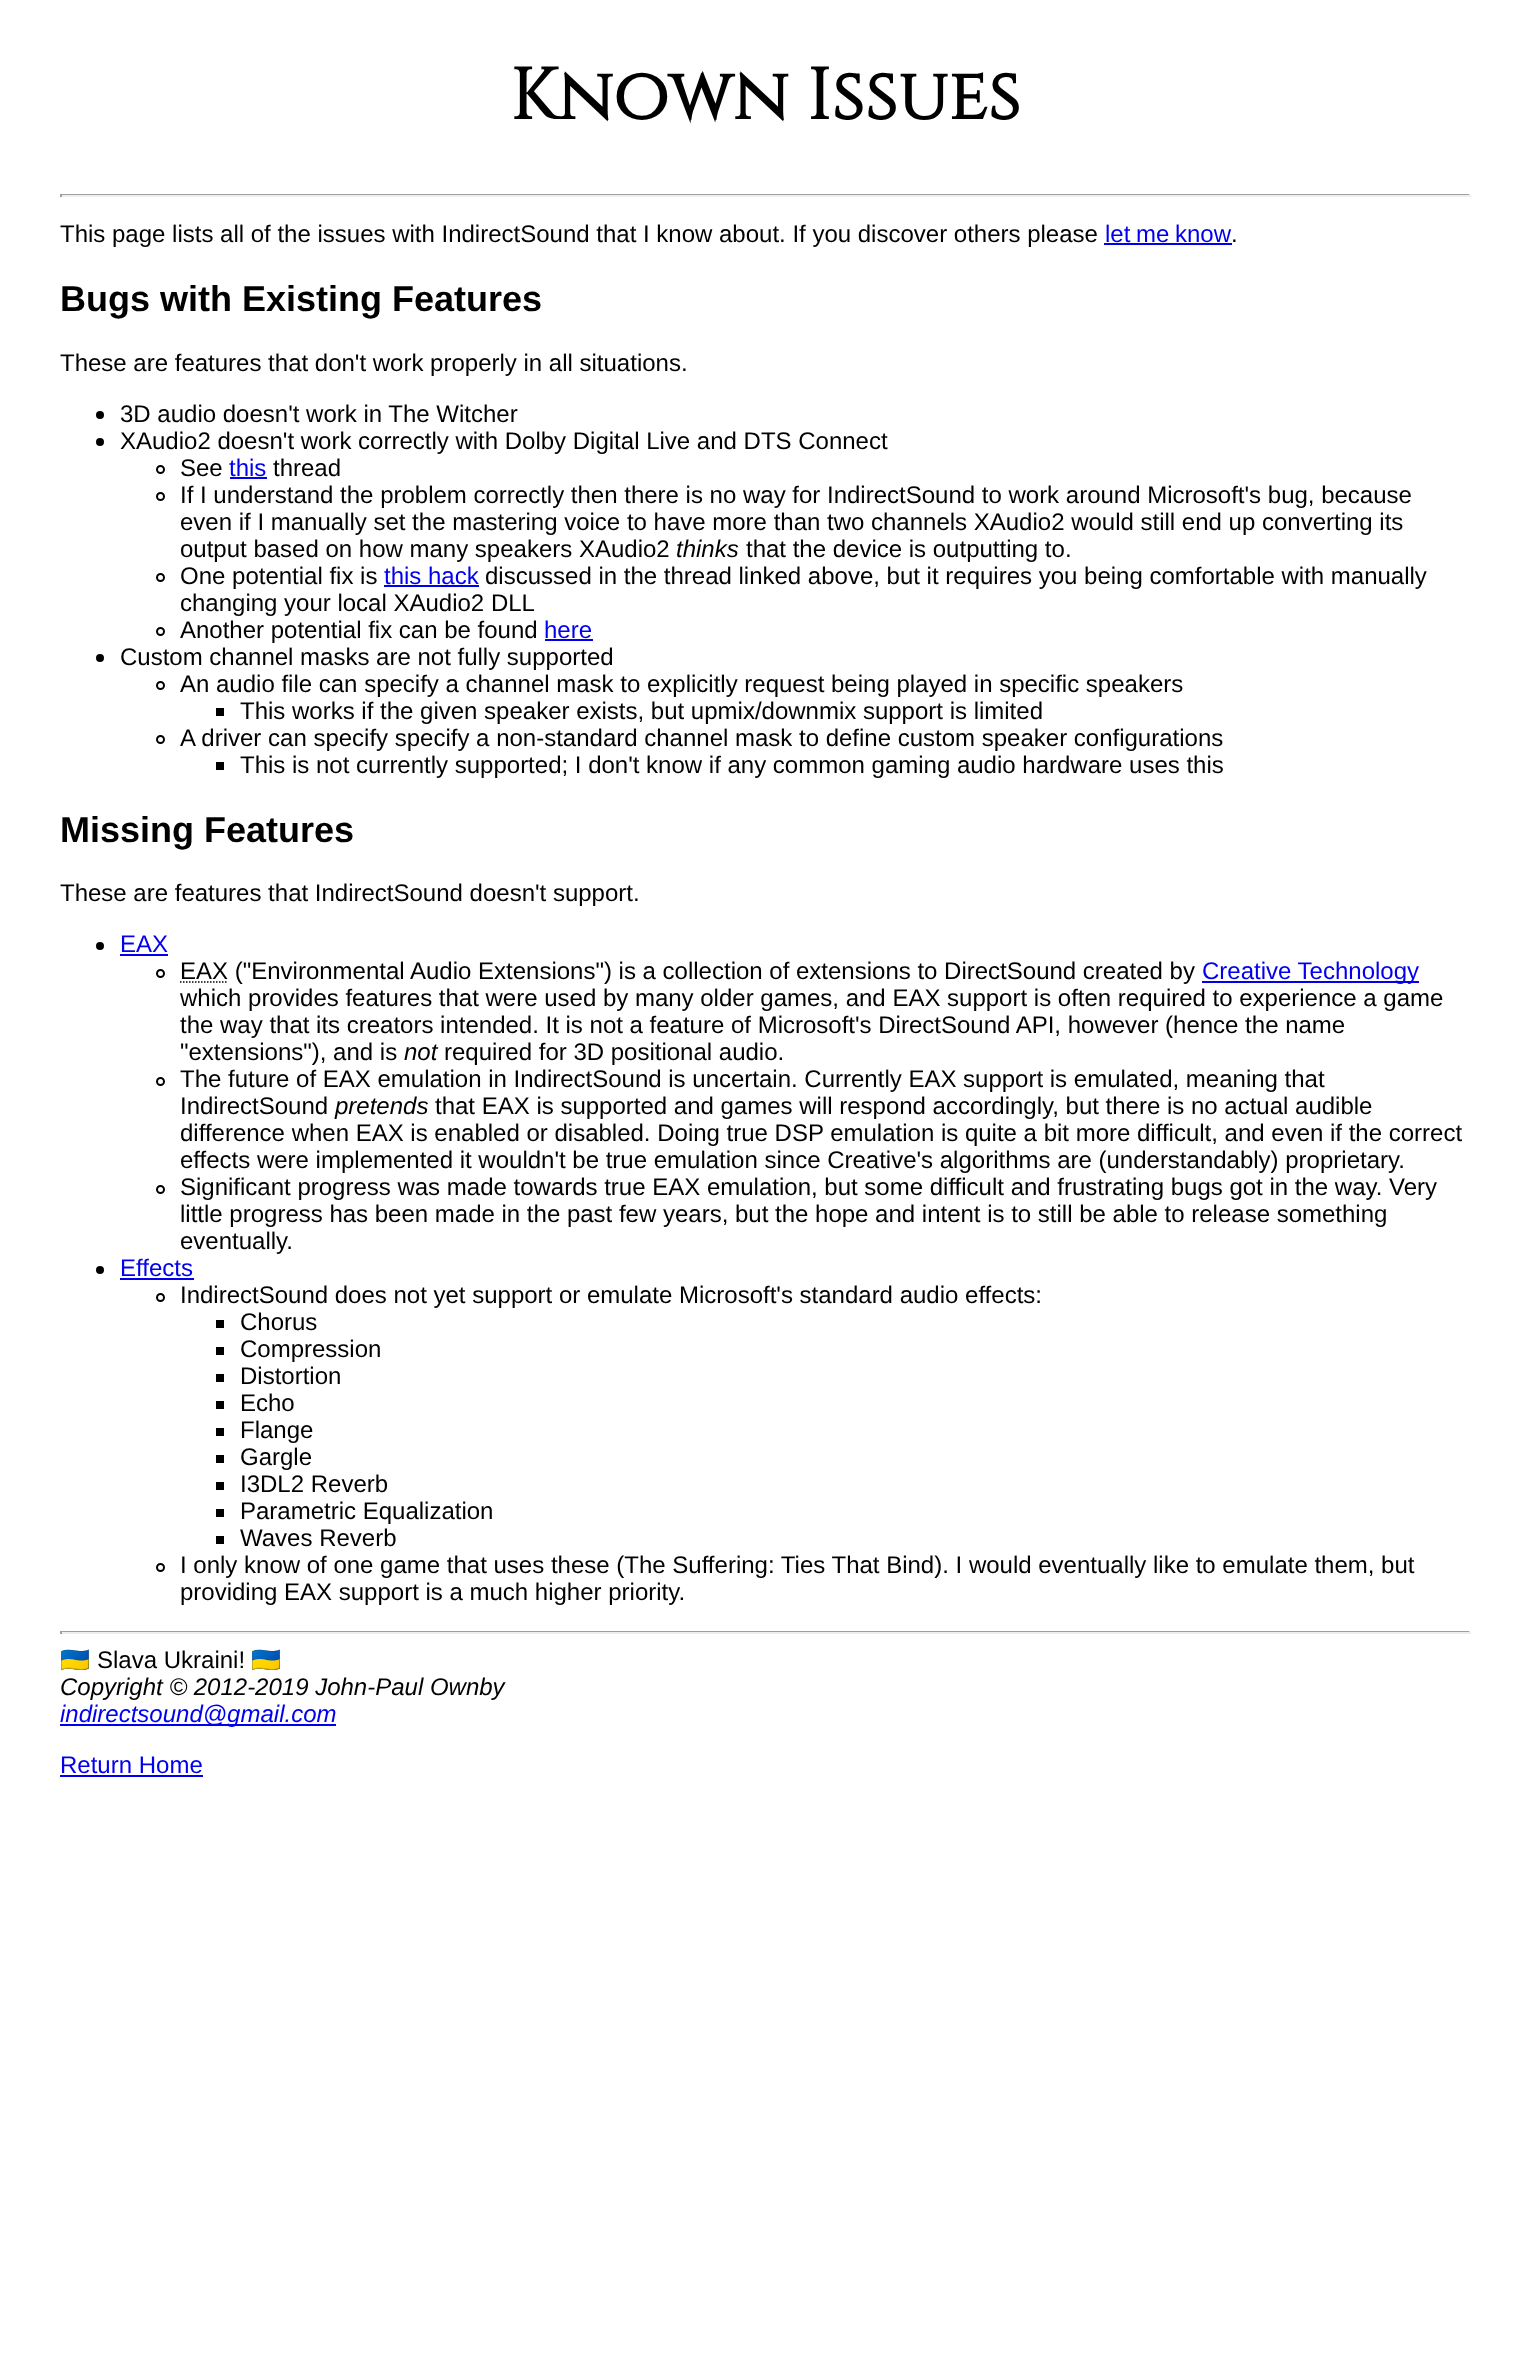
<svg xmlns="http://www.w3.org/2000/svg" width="1530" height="2380">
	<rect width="100%" height="100%" fill="#FFFFFF" />
	<text x="510" y="119" font-family="Cinzel" font-size="72" font-weight="700" fill="#000000">Known Issues</text>
	<rect x="60" y="194" width="1410" height="1" fill="#9F9F9F" />
	<rect x="1469" y="194" width="2" height="3" fill="#EEEEEE" />
	<rect x="60" y="195" width="1410" height="2" fill="#EEEEEE" />
	<rect x="60" y="194" width="2" height="3" fill="#9F9F9F" />
	<text x="60" y="242" font-family="Liberation Sans" font-size="24" fill="#000000">This page lists all of the issues with IndirectSound that I know about. If you discover others please</text>
	<text x="1105" y="242" word-spacing="-1" font-family="Liberation Sans" font-size="24" fill="#0000EE">let me know</text>
	<rect x="1104" y="243" width="128" height="2" fill="#0000EE" />
	<text x="1231" y="242" font-family="Liberation Sans" font-size="24" fill="#000000">.</text>
	<text x="60" y="311" font-family="Liberation Sans" font-size="36" font-weight="700" fill="#000000">Bugs with Existing Features</text>
	<text x="60" y="371" font-family="Liberation Sans" font-size="24" fill="#000000">These are features that don't work properly in all situations.</text>
	<circle cx="100" cy="415" r="4" fill="#000000" />
	<text x="120" y="422" font-family="Liberation Sans" font-size="24" fill="#000000">3D audio doesn't work in The Witcher</text>
	<circle cx="100" cy="442" r="4" fill="#000000" />
	<text x="120" y="449" font-family="Liberation Sans" font-size="24" fill="#000000">XAudio2 doesn't work correctly with Dolby Digital Live and DTS Connect</text>
	<circle cx="160.5" cy="469.5" r="3.5" fill="none" stroke="#000000" stroke-width="2" />
	<text x="180" y="476" font-family="Liberation Sans" font-size="24" fill="#000000">See</text>
	<text x="229" y="476" font-family="Liberation Sans" font-size="24" fill="#0000EE">this</text>
	<rect x="230" y="477" width="37" height="2" fill="#0000EE" />
	<text x="273" y="476" font-family="Liberation Sans" font-size="24" fill="#000000">thread</text>
	<circle cx="160.5" cy="496.5" r="3.5" fill="none" stroke="#000000" stroke-width="2" />
	<g font-family="Liberation Sans" font-size="24" fill="#000000">
		<text x="180" y="503">If I understand the problem correctly then there is no way for IndirectSound to work around Microsoft's bug, because</text>
		<text x="180" y="530">even if I manually set the mastering voice to have more than two channels XAudio2 would still end up converting its</text>
		<text x="180" y="557">output based on how many speakers XAudio2</text>
	</g>
	<text x="676" y="557" font-family="Liberation Sans" font-size="24" font-style="italic" fill="#000000">thinks</text>
	<text x="746" y="557" font-family="Liberation Sans" font-size="24" fill="#000000">that the device is outputting to.</text>
	<circle cx="160.5" cy="577.5" r="3.5" fill="none" stroke="#000000" stroke-width="2" />
	<text x="180" y="584" font-family="Liberation Sans" font-size="24" fill="#000000">One potential fix is</text>
	<text x="384" y="584" font-family="Liberation Sans" font-size="24" fill="#0000EE">this hack</text>
	<rect x="384" y="585" width="95" height="2" fill="#0000EE" />
	<g font-family="Liberation Sans" font-size="24" fill="#000000">
		<text x="485" y="584">discussed in the thread linked above, but it requires you being comfortable with manually</text>
		<text x="180" y="611">changing your local XAudio2 DLL</text>
	</g>
	<circle cx="160.5" cy="631.5" r="3.5" fill="none" stroke="#000000" stroke-width="2" />
	<text x="180" y="638" font-family="Liberation Sans" font-size="24" fill="#000000">Another potential fix can be found</text>
	<text x="544" y="638" font-family="Liberation Sans" font-size="24" fill="#0000EE">here</text>
	<rect x="545" y="639" width="48" height="2" fill="#0000EE" />
	<circle cx="100" cy="658" r="4" fill="#000000" />
	<text x="120" y="665" font-family="Liberation Sans" font-size="24" fill="#000000">Custom channel masks are not fully supported</text>
	<circle cx="160.5" cy="685.5" r="3.5" fill="none" stroke="#000000" stroke-width="2" />
	<text x="180" y="692" font-family="Liberation Sans" font-size="24" fill="#000000">An audio file can specify a channel mask to explicitly request being played in specific speakers</text>
	<rect x="216" y="708" width="8" height="8" fill="#000000" />
	<text x="240" y="719" font-family="Liberation Sans" font-size="24" fill="#000000">This works if the given speaker exists, but upmix/downmix support is limited</text>
	<circle cx="160.5" cy="739.5" r="3.5" fill="none" stroke="#000000" stroke-width="2" />
	<text x="180" y="746" font-family="Liberation Sans" font-size="24" fill="#000000">A driver can specify specify a non-standard channel mask to define custom speaker configurations</text>
	<rect x="216" y="762" width="8" height="8" fill="#000000" />
	<text x="240" y="773" font-family="Liberation Sans" font-size="24" fill="#000000">This is not currently supported; I don't know if any common gaming audio hardware uses this</text>
	<text x="60" y="842" font-family="Liberation Sans" font-size="36" font-weight="700" fill="#000000">Missing Features</text>
	<text x="60" y="901" font-family="Liberation Sans" font-size="24" fill="#000000">These are features that IndirectSound doesn't support.</text>
	<circle cx="100" cy="946" r="4" fill="#000000" />
	<text x="120" y="952" font-family="Liberation Sans" font-size="24" fill="#0000EE">EAX</text>
	<rect x="120" y="954" width="48" height="2" fill="#0000EE" />
	<circle cx="160.5" cy="973.5" r="3.5" fill="none" stroke="#000000" stroke-width="2" />
	<path d="M180 982H228" fill="none" stroke="#000000" stroke-width="1.5" stroke-dasharray="1.5 1.5" />
	<text x="180" y="979" font-family="Liberation Sans" font-size="24" fill="#000000">EAX ("Environmental Audio Extensions") is a collection of extensions to DirectSound created by</text>
	<rect x="1202" y="981" width="217" height="2" fill="#0000EE" />
	<text x="1202" y="979" font-family="Liberation Sans" font-size="24" fill="#0000EE">Creative Technology</text>
	<g font-family="Liberation Sans" font-size="24" fill="#000000">
		<text x="180" y="1006">which provides features that were used by many older games, and EAX support is often required to experience a game</text>
		<text x="180" y="1033">the way that its creators intended. It is not a feature of Microsoft's DirectSound API, however (hence the name</text>
		<text x="180" y="1060">"extensions"), and is</text>
	</g>
	<text x="404" y="1060" font-family="Liberation Sans" font-size="24" font-style="italic" fill="#000000">not</text>
	<text x="444" y="1060" font-family="Liberation Sans" font-size="24" fill="#000000">required for 3D positional audio.</text>
	<circle cx="160.5" cy="1081.5" r="3.5" fill="none" stroke="#000000" stroke-width="2" />
	<g font-family="Liberation Sans" font-size="24" fill="#000000">
		<text x="180" y="1087">The future of EAX emulation in IndirectSound is uncertain. Currently EAX support is emulated, meaning that</text>
		<text x="180" y="1114">IndirectSound</text>
	</g>
	<text x="335" y="1114" font-family="Liberation Sans" font-size="24" font-style="italic" fill="#000000">pretends</text>
	<g font-family="Liberation Sans" font-size="24" fill="#000000">
		<text x="435" y="1114">that EAX is supported and games will respond accordingly, but there is no actual audible</text>
		<text x="180" y="1141">difference when EAX is enabled or disabled. Doing true DSP emulation is quite a bit more difficult, and even if the correct</text>
		<text x="180" y="1168">effects were implemented it wouldn't be true emulation since Creative's algorithms are (understandably) proprietary.</text>
	</g>
	<circle cx="160.5" cy="1189.5" r="3.5" fill="none" stroke="#000000" stroke-width="2" />
	<g font-family="Liberation Sans" font-size="24" fill="#000000">
		<text x="180" y="1195">Significant progress was made towards true EAX emulation, but some difficult and frustrating bugs got in the way. Very</text>
		<text x="180" y="1222">little progress has been made in the past few years, but the hope and intent is to still be able to release something</text>
		<text x="180" y="1249">eventually.</text>
	</g>
	<circle cx="100" cy="1270" r="4" fill="#000000" />
	<text x="120" y="1276" font-family="Liberation Sans" font-size="24" fill="#0000EE">Effects</text>
	<rect x="120" y="1278" width="74" height="2" fill="#0000EE" />
	<circle cx="160.5" cy="1297.5" r="3.5" fill="none" stroke="#000000" stroke-width="2" />
	<text x="180" y="1303" font-family="Liberation Sans" font-size="24" fill="#000000">IndirectSound does not yet support or emulate Microsoft's standard audio effects:</text>
	<rect x="216" y="1320" width="8" height="8" fill="#000000" />
	<text x="240" y="1330" font-family="Liberation Sans" font-size="24" fill="#000000">Chorus</text>
	<rect x="216" y="1347" width="8" height="8" fill="#000000" />
	<text x="240" y="1357" font-family="Liberation Sans" font-size="24" fill="#000000">Compression</text>
	<rect x="216" y="1374" width="8" height="8" fill="#000000" />
	<text x="240" y="1384" font-family="Liberation Sans" font-size="24" fill="#000000">Distortion</text>
	<rect x="216" y="1401" width="8" height="8" fill="#000000" />
	<text x="240" y="1411" font-family="Liberation Sans" font-size="24" fill="#000000">Echo</text>
	<rect x="216" y="1428" width="8" height="8" fill="#000000" />
	<text x="240" y="1438" font-family="Liberation Sans" font-size="24" fill="#000000">Flange</text>
	<rect x="216" y="1455" width="8" height="8" fill="#000000" />
	<text x="240" y="1465" font-family="Liberation Sans" font-size="24" fill="#000000">Gargle</text>
	<rect x="216" y="1482" width="8" height="8" fill="#000000" />
	<text x="240" y="1492" font-family="Liberation Sans" font-size="24" fill="#000000">I3DL2 Reverb</text>
	<rect x="216" y="1509" width="8" height="8" fill="#000000" />
	<text x="240" y="1519" font-family="Liberation Sans" font-size="24" fill="#000000">Parametric Equalization</text>
	<rect x="216" y="1536" width="8" height="8" fill="#000000" />
	<text x="240" y="1546" font-family="Liberation Sans" font-size="24" fill="#000000">Waves Reverb</text>
	<circle cx="160.5" cy="1567.5" r="3.5" fill="none" stroke="#000000" stroke-width="2" />
	<g font-family="Liberation Sans" font-size="24" fill="#000000">
		<text x="180" y="1573">I only know of one game that uses these (The Suffering: Ties That Bind). I would eventually like to emulate them, but</text>
		<text x="180" y="1600">providing EAX support is a much higher priority.</text>
	</g>
	<rect x="60" y="1631" width="1410" height="1" fill="#9F9F9F" />
	<rect x="1469" y="1631" width="2" height="3" fill="#EEEEEE" />
	<rect x="60" y="1632" width="1410" height="2" fill="#EEEEEE" />
	<rect x="60" y="1631" width="2" height="3" fill="#9F9F9F" />
	<text x="60" y="1668" font-family="Noto Color Emoji" font-size="24" fill="#000000">🇺🇦</text>
	<text x="97" y="1668" font-family="Liberation Sans" font-size="24" fill="#000000">Slava Ukraini!</text>
	<text x="251" y="1668" font-family="Noto Color Emoji" font-size="24" fill="#000000">🇺🇦</text>
	<text x="60" y="1695" font-family="Liberation Sans" font-size="24" font-style="italic" fill="#000000">Copyright © 2012-2019 John-Paul Ownby</text>
	<rect x="60" y="1724" width="276" height="2" fill="#0000EE" />
	<text x="60" y="1722" font-family="Liberation Sans" font-size="24" font-style="italic" fill="#0000EE">indirectsound@gmail.com</text>
	<text x="60" y="1773" font-family="Liberation Sans" font-size="24" fill="#0000EE">Return Home</text>
	<rect x="60" y="1775" width="143" height="2" fill="#0000EE" />
</svg>
